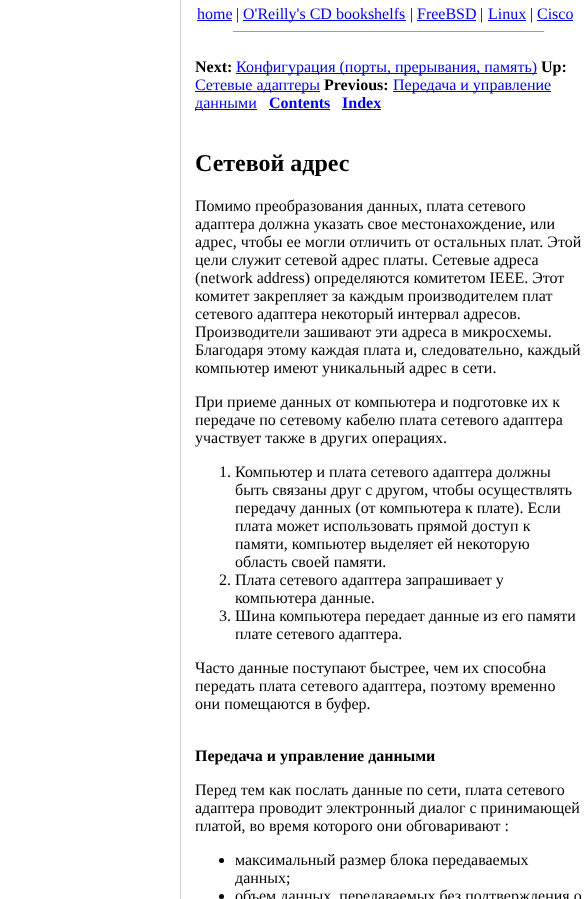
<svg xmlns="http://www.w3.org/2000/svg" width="588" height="899">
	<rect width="100%" height="100%" fill="#FFFFFF" />
	<rect x="180" y="0" width="1" height="899" fill="#D3D3D3" />
	<text x="197" y="19" font-family="Liberation Serif" font-size="16" fill="#0000EE">home</text>
	<rect x="197" y="20" width="35" height="1" fill="#0000EE" />
	<text x="236" y="19" font-family="Liberation Serif" font-size="16" fill="#000000">|</text>
	<rect x="243" y="20" width="163" height="1" fill="#0000EE" />
	<text x="243" y="19" font-family="Liberation Serif" font-size="16" fill="#0000EE">O'Reilly's CD bookshelfs</text>
	<text x="410" y="19" font-family="Liberation Serif" font-size="16" fill="#000000">|</text>
	<text x="417" y="19" font-family="Liberation Serif" font-size="16" fill="#0000EE">FreeBSD</text>
	<rect x="417" y="20" width="59" height="1" fill="#0000EE" />
	<text x="480" y="19" font-family="Liberation Serif" font-size="16" fill="#000000">|</text>
	<text x="488" y="19" font-family="Liberation Serif" font-size="16" fill="#0000EE">Linux</text>
	<rect x="488" y="20" width="38" height="1" fill="#0000EE" />
	<text x="530" y="19" font-family="Liberation Serif" font-size="16" fill="#000000">|</text>
	<text x="537" y="19" font-family="Liberation Serif" font-size="16" fill="#0000EE">Cisco</text>
	<rect x="537" y="20" width="36" height="1" fill="#0000EE" />
	<rect x="233" y="31" width="312" height="1" fill="#9F9F9F" />
	<rect x="544" y="31" width="1" height="1" fill="#EEEEEE" />
	<text x="195" y="72" font-family="Liberation Serif" font-size="16" font-weight="700" fill="#000000">Next:</text>
	<rect x="236" y="73" width="301" height="1" fill="#0000EE" />
	<text x="236" y="72" font-family="Liberation Serif" font-size="16" fill="#0000EE">Конфигурация (порты, прерывания, память)</text>
	<text x="541" y="72" font-family="Liberation Serif" font-size="16" font-weight="700" fill="#000000">Up:</text>
	<rect x="195" y="91" width="125" height="1" fill="#0000EE" />
	<text x="195" y="90" font-family="Liberation Serif" font-size="16" fill="#0000EE">Сетевые адаптеры</text>
	<text x="324" y="90" font-family="Liberation Serif" font-size="16" font-weight="700" fill="#000000">Previous:</text>
	<rect x="393" y="91" width="158" height="1" fill="#0000EE" />
	<text x="393" y="90" font-family="Liberation Serif" font-size="16" fill="#0000EE">Передача и управление</text>
	<rect x="195" y="109" width="62" height="1" fill="#0000EE" />
	<text x="195" y="108" font-family="Liberation Serif" font-size="16" fill="#0000EE">данными</text>
	<text x="269" y="108" font-family="Liberation Serif" font-size="16" font-weight="700" fill="#0000EE">Contents</text>
	<rect x="269" y="109" width="61" height="1" fill="#0000EE" />
	<text x="342" y="108" font-family="Liberation Serif" font-size="16" font-weight="700" fill="#0000EE">Index</text>
	<rect x="342" y="109" width="39" height="1" fill="#0000EE" />
	<text x="195" y="171" font-family="Liberation Serif" font-size="24" font-weight="700" fill="#000000">Сетевой адрес</text>
	<g font-family="Liberation Serif" font-size="16" fill="#000000">
		<text x="195" y="211">Помимо преобразования данных, плата сетевого</text>
		<text x="195" y="229">адаптера должна указать свое местонахождение, или</text>
		<text x="195" y="247">адрес, чтобы ее могли отличить от остальных плат. Этой</text>
		<text x="195" y="265">цели служит сетевой адрес платы. Сетевые адреса</text>
		<text x="195" y="283">(network address) определяются комитетом IEEE. Этот</text>
		<text x="195" y="301">комитет закрепляет за каждым производителем плат</text>
		<text x="195" y="319">сетевого адаптера некоторый интервал адресов.</text>
		<text x="195" y="337">Производители зашивают эти адреса в микросхемы.</text>
		<text x="195" y="355">Благодаря этому каждая плата и, следовательно, каждый</text>
		<text x="195" y="373">компьютер имеют уникальный адрес в сети.</text>
		<text x="195" y="407">При приеме данных от компьютера и подготовке их к</text>
		<text x="195" y="425">передаче по сетевому кабелю плата сетевого адаптера</text>
		<text x="195" y="443">участвует также в других операциях.</text>
		<text x="219" y="477">1. Компьютер и плата сетевого адаптера должны</text>
		<text x="235" y="495">быть связаны друг с другом, чтобы осуществлять</text>
		<text x="235" y="513">передачу данных (от компьютера к плате). Если</text>
		<text x="235" y="531">плата может использовать прямой доступ к</text>
		<text x="235" y="549">памяти, компьютер выделяет ей некоторую</text>
		<text x="235" y="567">область своей памяти.</text>
		<text x="219" y="585">2. Плата сетевого адаптера запрашивает у</text>
		<text x="235" y="603">компьютера данные.</text>
		<text x="219" y="621">3. Шина компьютера передает данные из его памяти</text>
		<text x="235" y="639">плате сетевого адаптера.</text>
		<text x="195" y="673">Часто данные поступают быстрее, чем их способна</text>
		<text x="195" y="691">передать плата сетевого адаптера, поэтому временно</text>
		<text x="195" y="709">они помещаются в буфер.</text>
	</g>
	<text x="195" y="761" font-family="Liberation Serif" font-size="16" font-weight="700" fill="#000000">Передача и управление данными</text>
	<g font-family="Liberation Serif" font-size="16" fill="#000000">
		<text x="195" y="795">Перед тем как послать данные по сети, плата сетевого</text>
		<text x="195" y="813">адаптера проводит электронный диалог с принимающей</text>
		<text x="195" y="831">платой, во время которого они обговаривают :</text>
	</g>
	<circle cx="221.5" cy="860.5" r="2.5" fill="#000000" />
	<g font-family="Liberation Serif" font-size="16" fill="#000000">
		<text x="235" y="865">максимальный размер блока передаваемых</text>
		<text x="235" y="883">данных;</text>
	</g>
	<circle cx="221.5" cy="896.5" r="2.5" fill="#000000" />
	<text x="235" y="901" font-family="Liberation Serif" font-size="16" fill="#000000">объем данных, передаваемых без подтверждения о</text>
</svg>
